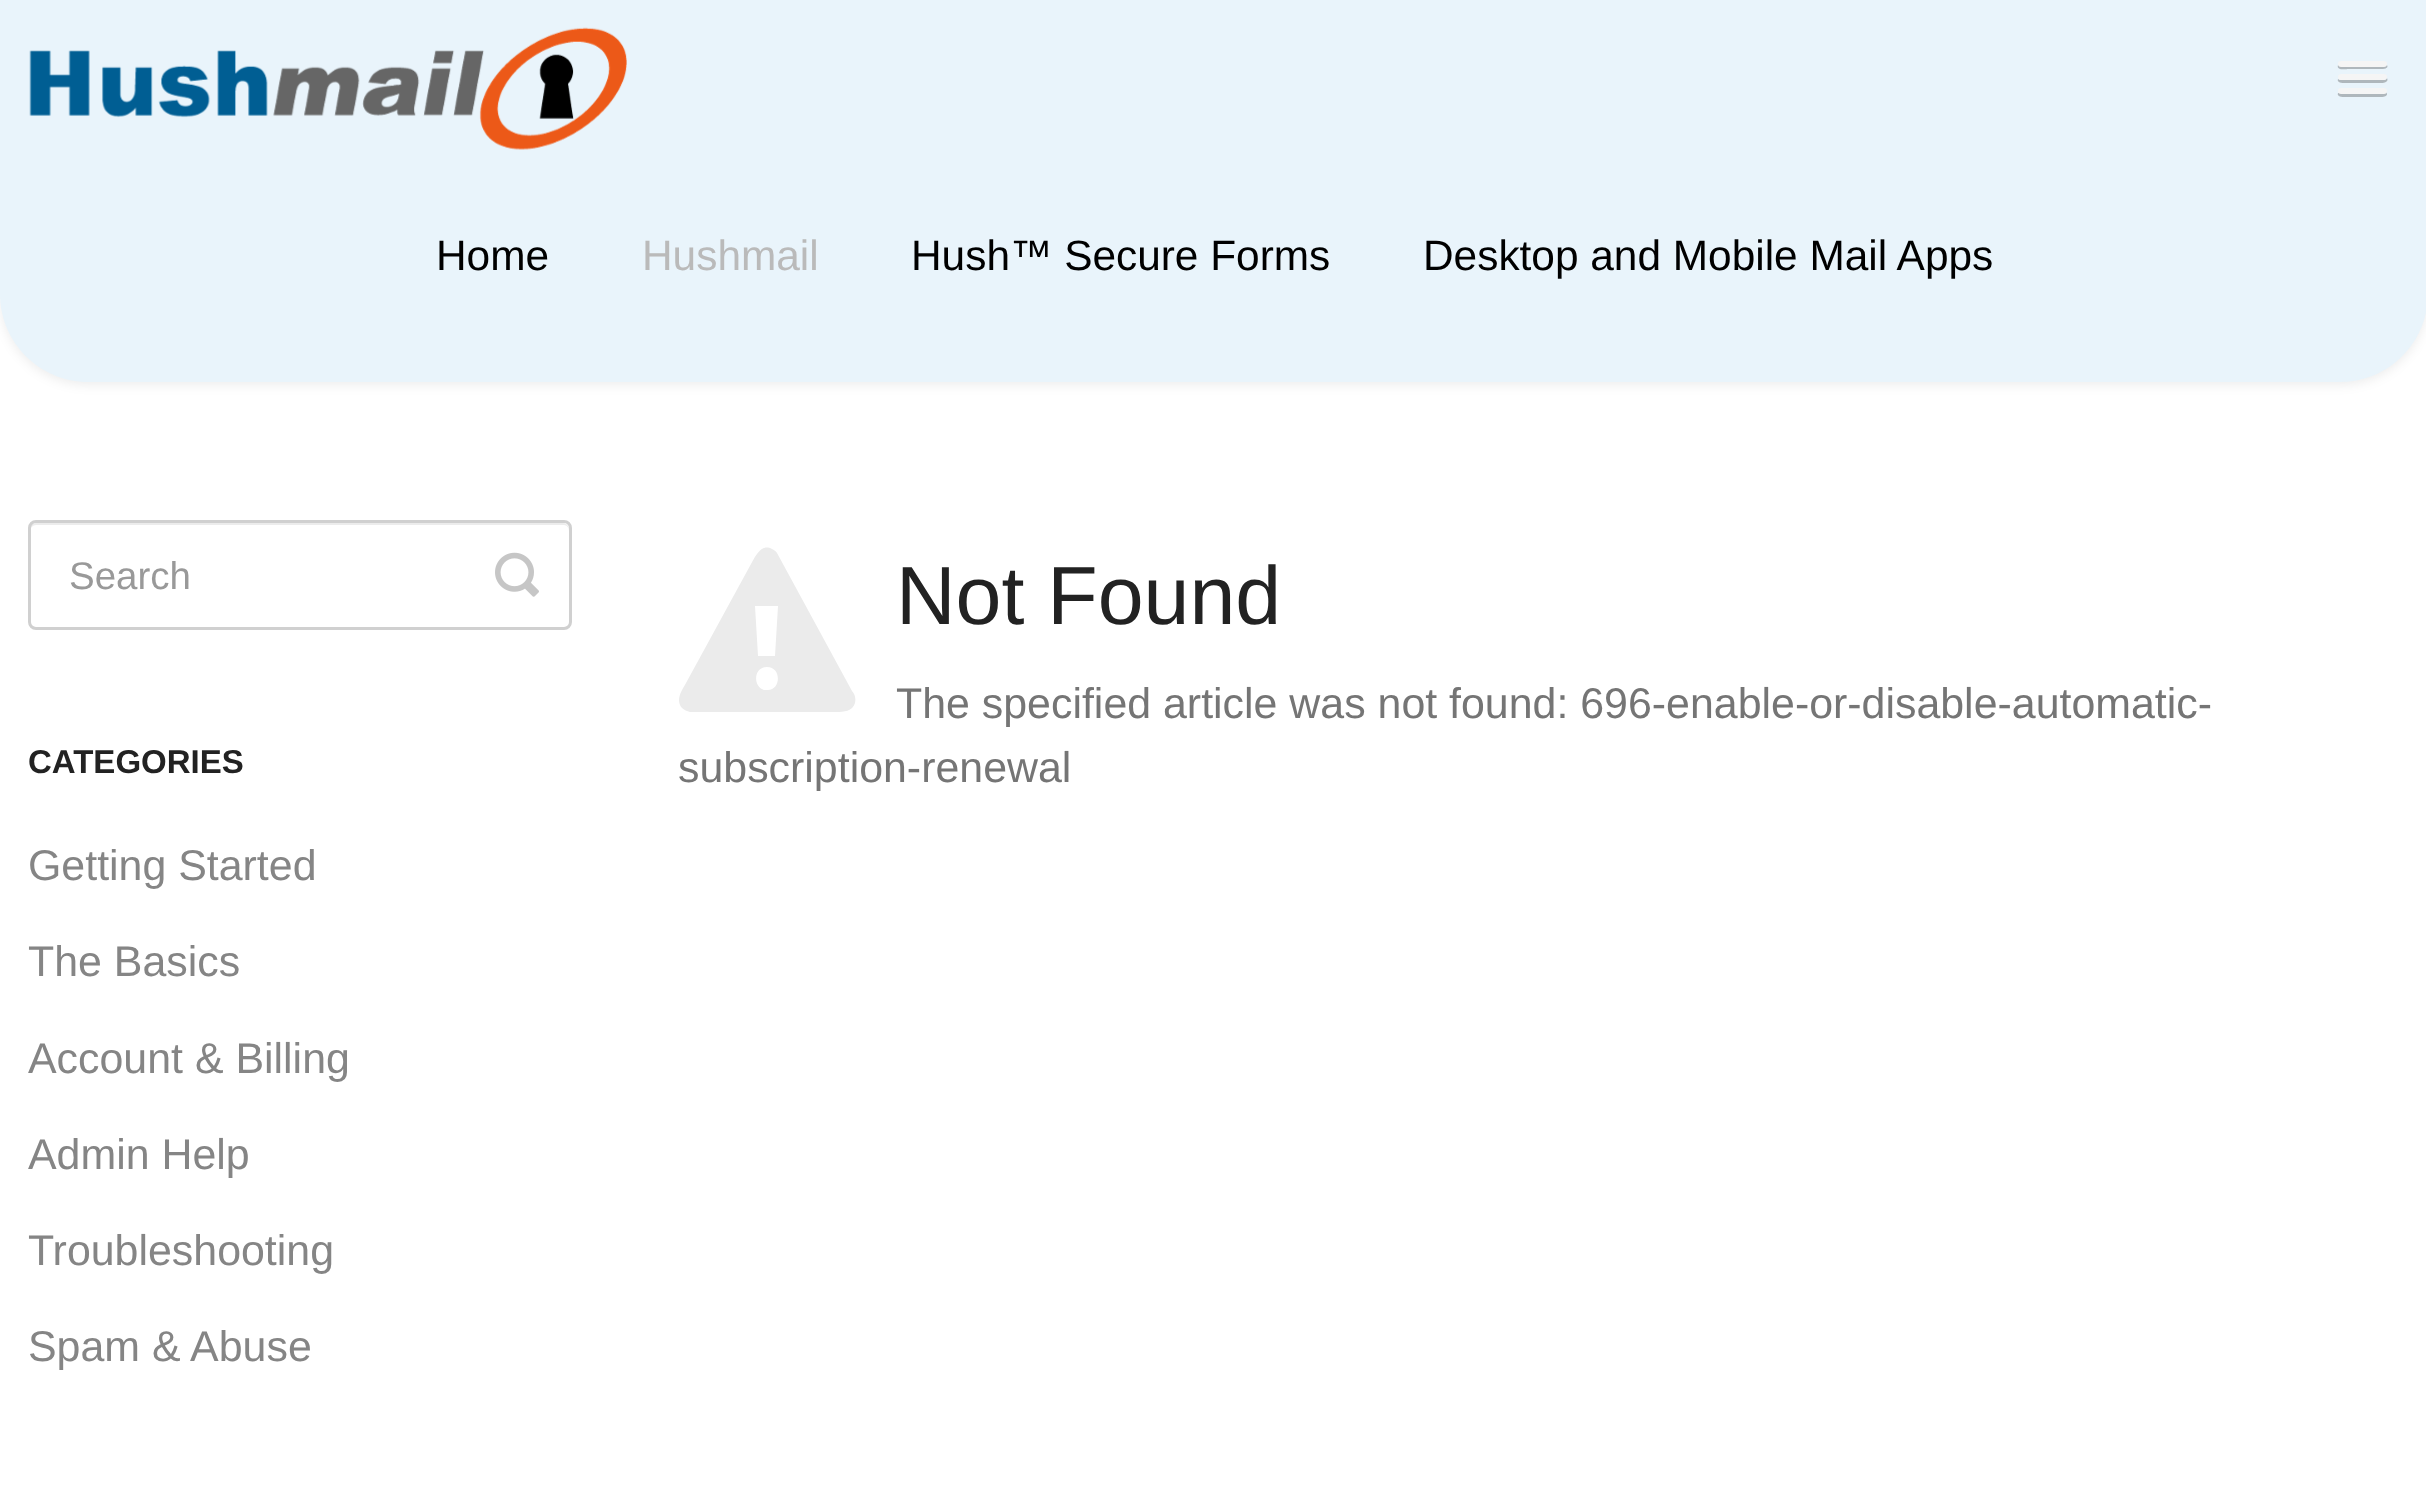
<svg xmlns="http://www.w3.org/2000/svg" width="2426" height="1494">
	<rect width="100%" height="100%" fill="#FFFFFF" />
	<rect x="0" y="-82" width="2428" height="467" rx="88" fill="#000000" fill-opacity="0.07" filter="blur(5.5px)" />
	<path d="M0-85H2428V294C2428 342.5 2388.5 382 2340 382H88C39.5 382 0 342.5 0 294Z" fill="#E9F4FB" />
	<image x="29" y="27" width="598" height="123" href="assets/img1.png" />
	<path d="M2338 65C2336 71 2347 69 2348 69H2377C2378 69 2390 70 2387 65L2385 66H2340Z" fill="#AFB7BC" />
	<rect x="2338" y="61" width="49" height="6" rx="3" fill="#F5F5F5" />
	<path d="M2338 79C2336 84 2347 83 2348 83H2377C2378 83 2390 84 2387 78L2385 80H2340Z" fill="#AFB7BC" />
	<rect x="2338" y="74" width="49" height="6" rx="3" fill="#F5F5F5" />
	<path d="M2338 93C2336 98 2347 97 2348 97H2377C2377 97 2391 98 2386 92L2385 93H2340Z" fill="#AFB7BC" />
	<rect x="2338" y="88" width="49" height="6" rx="3" fill="#F5F5F5" />
	<text x="436" y="270" font-family="Liberation Sans" font-size="42.4" fill="#000000">Home</text>
	<text x="642" y="270" font-family="Liberation Sans" font-size="42.4" fill="#BABABA">Hushmail</text>
	<g font-family="Liberation Sans" font-size="42.4" fill="#000000">
		<text x="911" y="270">Hush™ Secure Forms</text>
		<text x="1423" y="270">Desktop and Mobile Mail Apps</text>
	</g>
	<path d="M36 525H564C567 525 569 528 569 531V529C569 526 566 523 563 523H36C33 523 30 526 30 529V531C30 528 33 525 36 525Z" fill="#ECECEC" />
	<rect x="29.5" y="521.5" width="541" height="107" rx="6.5" fill="none" stroke="#D0D0D0" stroke-width="3" />
	<text x="69" y="589" font-family="Liberation Sans" font-size="38.5" fill="#999999">Search</text>
	<image x="495" y="552" width="44" height="45" href="assets/img2.png" />
	<text x="28" y="773" font-family="Liberation Sans" font-size="33" font-weight="700" fill="#222222">CATEGORIES</text>
	<g font-family="Liberation Sans" font-size="42.9" fill="#858585">
		<text x="28" y="880">Getting Started</text>
		<text x="28" y="976">The Basics</text>
		<text x="28" y="1073">Account &amp; Billing</text>
		<text x="28" y="1169">Admin Help</text>
		<text x="28" y="1265">Troubleshooting</text>
		<text x="28" y="1361">Spam &amp; Abuse</text>
	</g>
	<path d="M852 691L777 553C776 551 774 550 772 549C761 543 755 557 751 564L686 683C682 690 675 700 682 708C684 710 687 711 690 712H832C840 712 852 713 855 703C856 699 855 694 852 691ZM778 606L775 656H758L755 606ZM767 690C753 691 752 667 767 667C782 667 781 691 767 690Z" fill="#EBEBEB" />
	<text x="896" y="624" font-family="Liberation Sans" font-size="82.5" fill="#222222">Not Found</text>
	<g font-family="Liberation Sans" font-size="42.9" fill="#757575">
		<text x="896" y="718">The specified article was not found: 696-enable-or-disable-automatic-</text>
		<text x="678" y="782">subscription-renewal</text>
	</g>
</svg>
